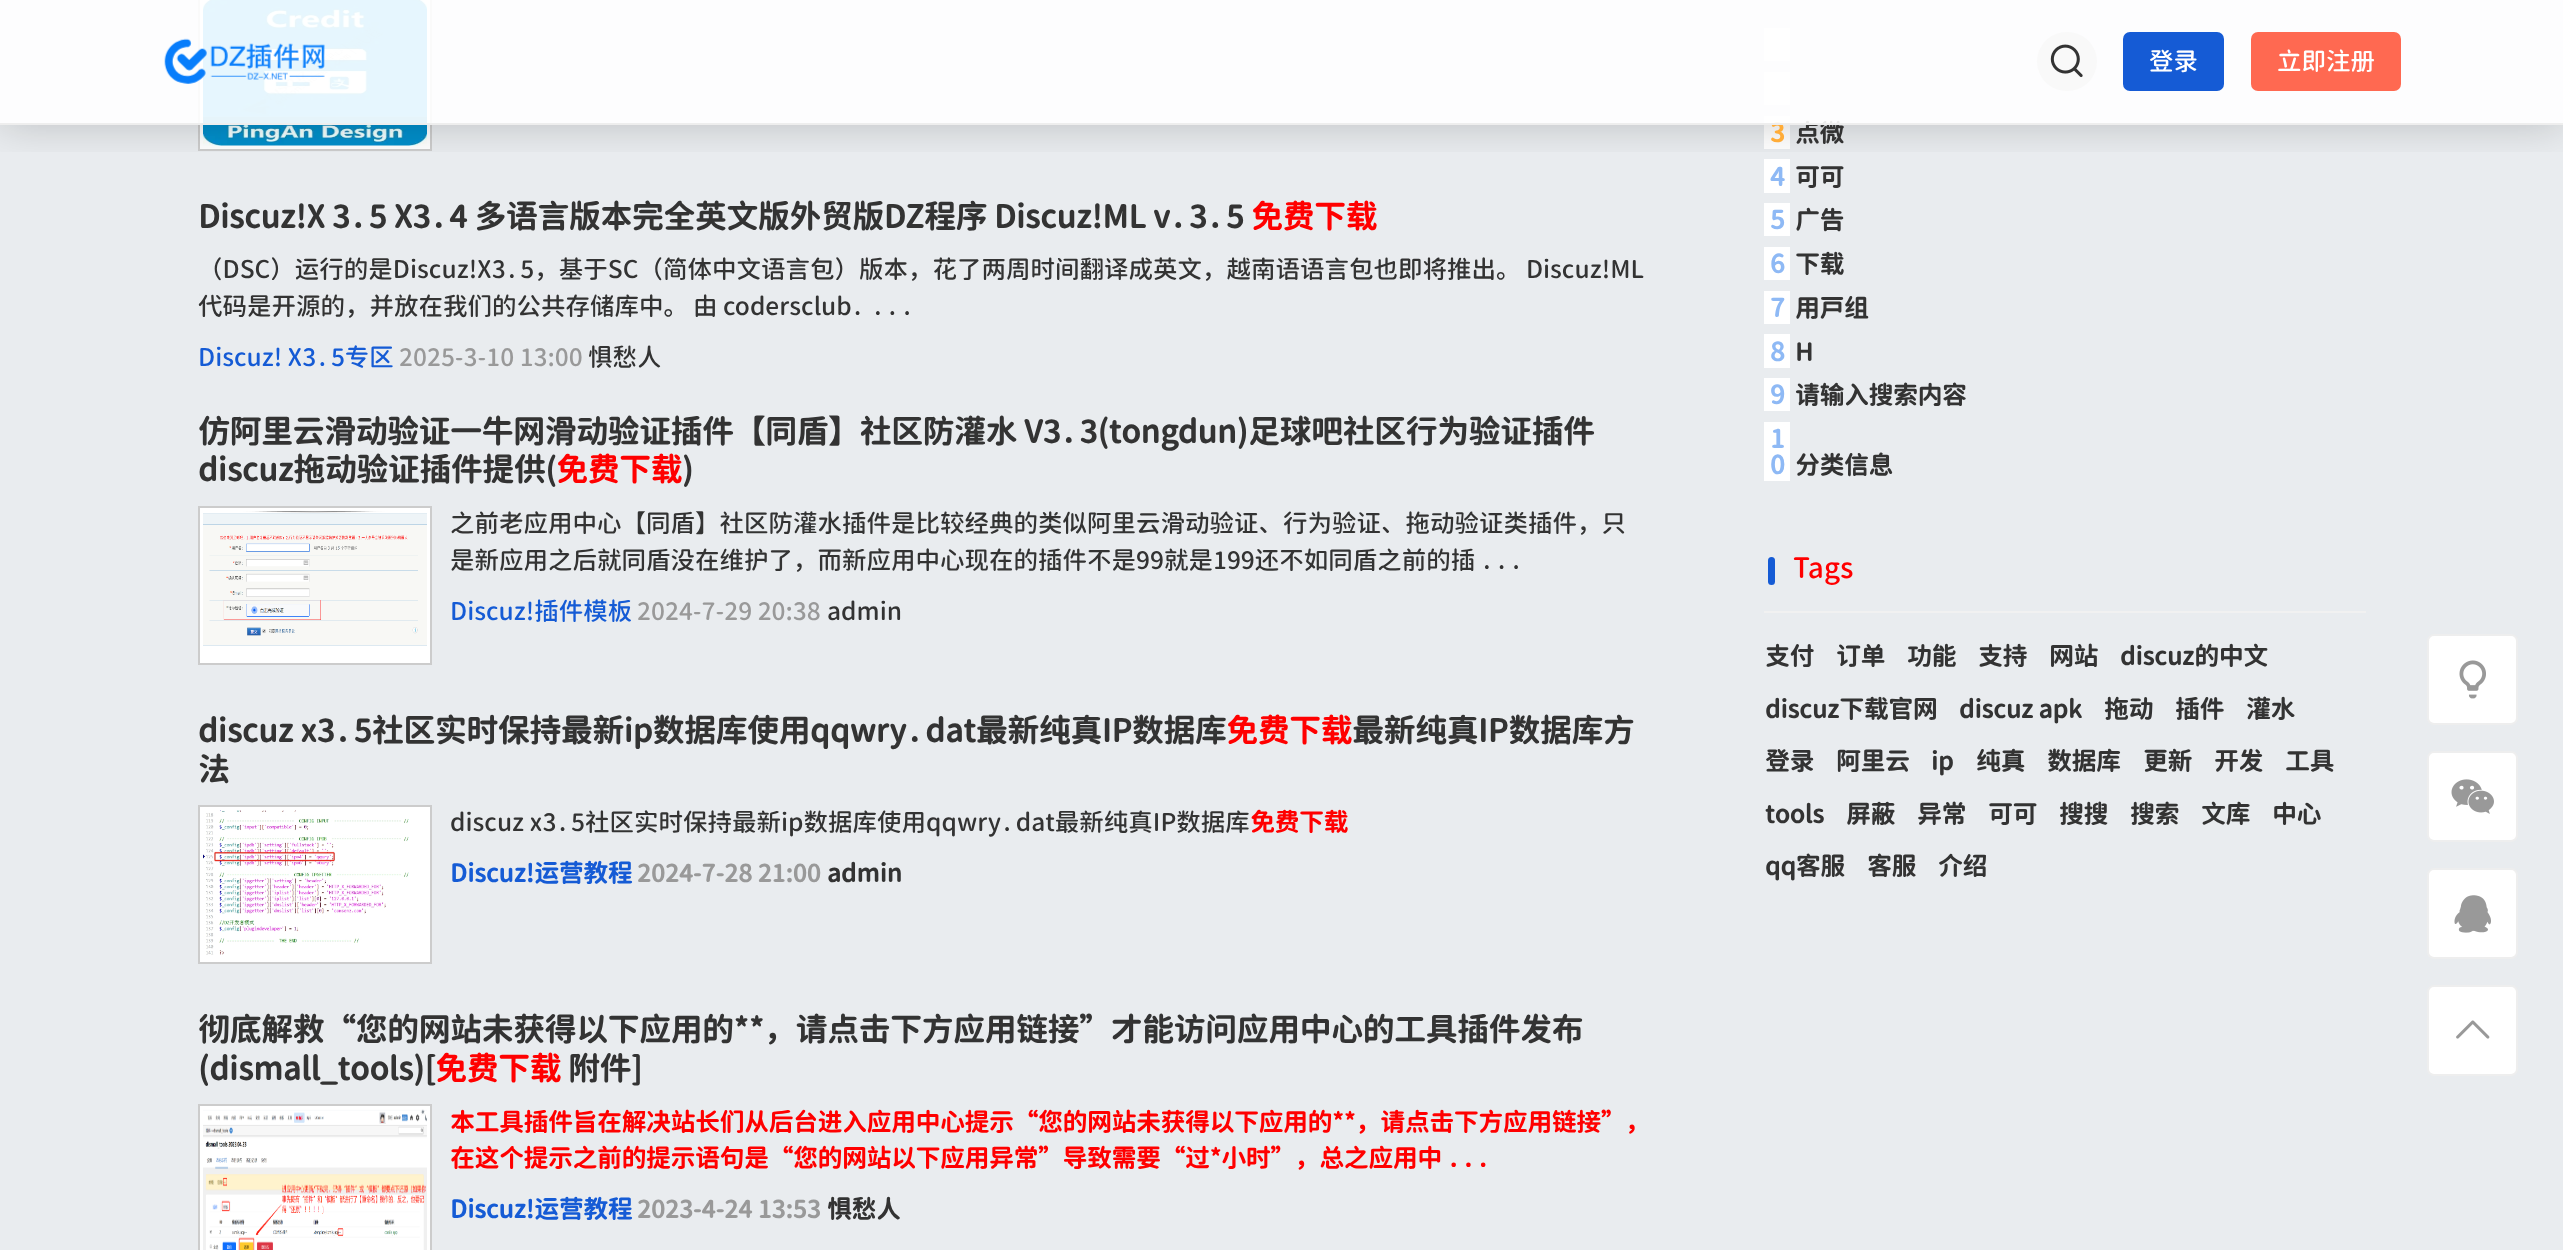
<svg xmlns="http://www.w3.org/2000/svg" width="2563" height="1250">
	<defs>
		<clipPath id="clip1"><rect x="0" y="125" width="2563" height="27" /></clipPath>
	</defs>
	<rect width="100%" height="100%" fill="#E9ECEF" />
	<rect x="199" y="-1" width="232" height="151" fill="#FFFFFF" stroke="#CCCCCC" stroke-width="2" />
	<image x="203" y="0" width="224" height="146" href="assets/img3.png" />
	<rect x="1764" y="28" width="26" height="33" fill="#FFFFFF" />
	<rect x="1764" y="72" width="26" height="33" fill="#FFFFFF" />
	<rect x="1764" y="116" width="26" height="33" fill="#FFFFFF" />
	<rect x="1764" y="159" width="26" height="34" fill="#FFFFFF" />
	<g clip-path="url(#clip1)">
		<rect x="0" y="0" width="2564" height="124" fill="#000000" fill-opacity="0.2" filter="blur(22px)" />
	</g>
	<text x="1770" y="142" font-family="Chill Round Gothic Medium" font-size="26" font-weight="700" fill="#FFAC38">3</text>
	<text x="1795" y="142" font-family="Chill Round Gothic Medium" font-size="24.5" font-weight="700" fill="#333333">点微</text>
	<rect x="0" y="0" width="2563" height="123" fill="#FFFFFF" fill-opacity="0.9" />
	<rect x="0" y="123" width="2563" height="2" fill="#EEEEEE" />
	<image x="164" y="38" width="161" height="46" href="assets/img1.png" />
	<rect x="2037" y="32" width="60" height="59" rx="29.5" fill="#F9F9F9" />
	<image x="2050" y="44" width="33" height="34" href="assets/img2.png" />
	<rect x="2123" y="32" width="101" height="59" rx="7" fill="#155BD5" />
	<text x="2149" y="70" font-family="Chill Round Gothic Medium" font-size="24.5" font-weight="500" fill="#FFFFFF">登录</text>
	<rect x="2251" y="32" width="150" height="59" rx="7" fill="#FF6951" />
	<text x="2277" y="70" font-family="Chill Round Gothic Medium" font-size="24.5" font-weight="500" fill="#FFFFFF">立即注册</text>
	<text x="198" y="228" font-family="Chill Round Gothic Medium" font-size="31.5" font-weight="700" fill="#333333">Discuz!X 3.5 X3.4 多语言版本完全英文版外贸版DZ程序 Discuz!ML v.3.5</text>
	<text x="1251" y="228" font-family="Chill Round Gothic Medium" font-size="31.5" font-weight="700" fill="#FF0000">免费下载</text>
	<g font-family="Chill Round Gothic Medium" font-size="24.5" font-weight="500" fill="#333333">
		<text x="198" y="278">（DSC）运行的是Discuz!X3.5，基于SC（简体中文语言包）版本，花了两周时间翻译成英文，越南语语言包也即将推出。 Discuz!ML</text>
		<text x="198" y="315">代码是开源的，并放在我们的公共存储库中。</text>
		<text x="693" y="315">由 codersclub. ...</text>
	</g>
	<text x="198" y="366" font-family="Chill Round Gothic Medium" font-size="24.5" font-weight="500" fill="#155BD5">Discuz! X3.5专区</text>
	<text x="399" y="366" font-family="Chill Round Gothic Medium" font-size="24.5" font-weight="500" fill="#999999">2025-3-10 13:00</text>
	<text x="588" y="366" font-family="Chill Round Gothic Medium" font-size="24.5" font-weight="500" fill="#333333">惧愁人</text>
	<g font-family="Chill Round Gothic Medium" font-size="31.5" font-weight="700" fill="#333333">
		<text x="198" y="443">仿阿里云滑动验证一牛网滑动验证插件【同盾】社区防灌水 V3.3(tongdun)足球吧社区行为验证插件</text>
		<text x="198" y="481">discuz拖动验证插件提供(</text>
	</g>
	<text x="556" y="481" font-family="Chill Round Gothic Medium" font-size="31.5" font-weight="700" fill="#FF0000">免费下载</text>
	<text x="682" y="481" font-family="Chill Round Gothic Medium" font-size="31.5" font-weight="700" fill="#333333">)</text>
	<rect x="199" y="507" width="232" height="157" fill="#FFFFFF" stroke="#CCCCCC" stroke-width="2" />
	<image x="203" y="511" width="224" height="135" href="assets/img4.png" />
	<g font-family="Chill Round Gothic Medium" font-size="24.5" font-weight="500" fill="#333333">
		<text x="450" y="532">之前老应用中心【同盾】社区防灌水插件是比较经典的类似阿里云滑动验证、行为验证、拖动验证类插件，只</text>
		<text x="450" y="569">是新应用之后就同盾没在维护了，而新应用中心现在的插件不是99就是199还不如同盾之前的插 ...</text>
	</g>
	<text x="450" y="620" font-family="Chill Round Gothic Medium" font-size="24.5" font-weight="500" fill="#155BD5">Discuz!插件模板</text>
	<text x="637" y="620" font-family="Chill Round Gothic Medium" font-size="24.5" font-weight="500" fill="#999999">2024-7-29 20:38</text>
	<text x="827" y="620" font-family="Chill Round Gothic Medium" font-size="24.5" font-weight="500" fill="#333333">admin</text>
	<text x="198" y="742" font-family="Chill Round Gothic Medium" font-size="31.5" font-weight="700" fill="#333333">discuz x3.5社区实时保持最新ip数据库使用qqwry.dat最新纯真IP数据库</text>
	<text x="1226" y="742" font-family="Chill Round Gothic Medium" font-size="31.5" font-weight="700" fill="#FF0000">免费下载</text>
	<g font-family="Chill Round Gothic Medium" font-size="31.5" font-weight="700" fill="#333333">
		<text x="1352" y="742">最新纯真IP数据库方</text>
		<text x="198" y="781">法</text>
	</g>
	<rect x="199" y="806" width="232" height="157" fill="#FFFFFF" stroke="#CCCCCC" stroke-width="2" />
	<image x="203" y="810" width="206" height="145" href="assets/img5.png" />
	<text x="450" y="831" font-family="Chill Round Gothic Medium" font-size="24.5" font-weight="500" fill="#333333">discuz x3.5社区实时保持最新ip数据库使用qqwry.dat最新纯真IP数据库</text>
	<text x="1250" y="831" font-family="Chill Round Gothic Medium" font-size="24.5" font-weight="700" fill="#FF0000">免费下载</text>
	<text x="450" y="882" font-family="Chill Round Gothic Medium" font-size="24.5" font-weight="700" fill="#155BD5">Discuz!运营教程</text>
	<text x="637" y="882" font-family="Chill Round Gothic Medium" font-size="24.5" font-weight="700" fill="#999999">2024-7-28 21:00</text>
	<text x="827" y="882" font-family="Chill Round Gothic Medium" font-size="24.5" font-weight="700" fill="#333333">admin</text>
	<g font-family="Chill Round Gothic Medium" font-size="31.5" font-weight="700" fill="#333333">
		<text x="198" y="1041">彻底解救“您的网站未获得以下应用的**，请点击下方应用链接”才能访问应用中心的工具插件发布</text>
		<text x="198" y="1080">(dismall_tools)[</text>
	</g>
	<text x="435" y="1080" font-family="Chill Round Gothic Medium" font-size="31.5" font-weight="700" fill="#FF0000">免费下载</text>
	<text x="568" y="1080" font-family="Chill Round Gothic Medium" font-size="31.5" font-weight="700" fill="#333333">附件]</text>
	<rect x="199" y="1105" width="232" height="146" fill="#FFFFFF" stroke="#CCCCCC" stroke-width="2" />
	<image x="203" y="1109" width="224" height="141" href="assets/img6.png" />
	<g font-family="Chill Round Gothic Medium" font-size="24.5" font-weight="700" fill="#FF0000">
		<text x="450" y="1131">本工具插件旨在解决站长们从后台进入应用中心提示“您的网站未获得以下应用的**，请点击下方应用链接”，</text>
		<text x="450" y="1167">在这个提示之前的提示语句是“您的网站以下应用异常”导致需要“过*小时”，总之应用中 ...</text>
	</g>
	<text x="450" y="1218" font-family="Chill Round Gothic Medium" font-size="24.5" font-weight="700" fill="#155BD5">Discuz!运营教程</text>
	<text x="637" y="1218" font-family="Chill Round Gothic Medium" font-size="24.5" font-weight="700" fill="#999999">2023-4-24 13:53</text>
	<text x="827" y="1218" font-family="Chill Round Gothic Medium" font-size="24.5" font-weight="700" fill="#333333">惧愁人</text>
	<text x="1770" y="186" font-family="Chill Round Gothic Medium" font-size="26" font-weight="700" fill="#8EB9F5">4</text>
	<text x="1795" y="186" font-family="Chill Round Gothic Medium" font-size="24.5" font-weight="700" fill="#333333">可可</text>
	<rect x="1764" y="203" width="26" height="33" fill="#FFFFFF" />
	<text x="1770" y="229" font-family="Chill Round Gothic Medium" font-size="26" font-weight="700" fill="#8EB9F5">5</text>
	<text x="1795" y="229" font-family="Chill Round Gothic Medium" font-size="24.5" font-weight="700" fill="#333333">广告</text>
	<rect x="1764" y="247" width="26" height="33" fill="#FFFFFF" />
	<text x="1770" y="273" font-family="Chill Round Gothic Medium" font-size="26" font-weight="700" fill="#8EB9F5">6</text>
	<text x="1795" y="273" font-family="Chill Round Gothic Medium" font-size="24.5" font-weight="700" fill="#333333">下载</text>
	<rect x="1764" y="291" width="26" height="33" fill="#FFFFFF" />
	<text x="1770" y="317" font-family="Chill Round Gothic Medium" font-size="26" font-weight="700" fill="#8EB9F5">7</text>
	<text x="1795" y="317" font-family="Chill Round Gothic Medium" font-size="24.5" font-weight="700" fill="#333333">用户组</text>
	<rect x="1764" y="334" width="26" height="34" fill="#FFFFFF" />
	<text x="1770" y="361" font-family="Chill Round Gothic Medium" font-size="26" font-weight="700" fill="#8EB9F5">8</text>
	<text x="1795" y="361" font-family="Chill Round Gothic Medium" font-size="24.5" font-weight="700" fill="#333333">H</text>
	<rect x="1764" y="378" width="26" height="33" fill="#FFFFFF" />
	<text x="1770" y="404" font-family="Chill Round Gothic Medium" font-size="26" font-weight="700" fill="#8EB9F5">9</text>
	<text x="1795" y="404" font-family="Chill Round Gothic Medium" font-size="24.5" font-weight="700" fill="#333333">请输入搜索内容</text>
	<rect x="1764" y="422" width="26" height="59" fill="#FFFFFF" />
	<g font-family="Chill Round Gothic Medium" font-size="26" font-weight="700" fill="#8EB9F5">
		<text x="1770" y="448">1</text>
		<text x="1770" y="474">0</text>
	</g>
	<text x="1795" y="474" font-family="Chill Round Gothic Medium" font-size="24.5" font-weight="700" fill="#333333">分类信息</text>
	<rect x="1764" y="611" width="602" height="2" fill="#F1F1F1" />
	<rect x="1768" y="557" width="7" height="28" rx="3.5" fill="#155BD5" />
	<text x="1793" y="578" font-family="Chill Round Gothic Medium" font-size="28" font-weight="500" fill="#FF0000">Tags</text>
	<g font-family="Chill Round Gothic Medium" font-size="24.5" font-weight="700" fill="#333333">
		<text x="1765" y="665">支付</text>
		<text x="1836" y="665">订单</text>
		<text x="1907" y="665">功能</text>
		<text x="1978" y="665">支持</text>
		<text x="2049" y="665">网站</text>
		<text x="2120" y="665">discuz的中文</text>
		<text x="1765" y="718">discuz下载官网</text>
		<text x="1959" y="718">discuz apk</text>
		<text x="2104" y="718">拖动</text>
		<text x="2175" y="718">插件</text>
		<text x="2246" y="718">灌水</text>
		<text x="1765" y="770">登录</text>
		<text x="1836" y="770">阿里云</text>
		<text x="1931" y="770">ip</text>
		<text x="1976" y="770">纯真</text>
		<text x="2047" y="770">数据库</text>
		<text x="2143" y="770">更新</text>
		<text x="2214" y="770">开发</text>
		<text x="2285" y="770">工具</text>
		<text x="1765" y="823">tools</text>
		<text x="1846" y="823">屏蔽</text>
		<text x="1917" y="823">异常</text>
		<text x="1988" y="823">可可</text>
		<text x="2059" y="823">搜搜</text>
		<text x="2130" y="823">搜索</text>
		<text x="2201" y="823">文库</text>
		<text x="2272" y="823">中心</text>
		<text x="1765" y="875">qq客服</text>
		<text x="1867" y="875">客服</text>
		<text x="1938" y="875">介绍</text>
	</g>
	<rect x="2428" y="635" width="89" height="89" rx="6" fill="#FFFFFF" stroke="#EEEEEE" stroke-width="2" />
	<image x="2459" y="660" width="27" height="39" href="assets/img7.png" />
	<rect x="2428" y="752" width="89" height="89" rx="6" fill="#FFFFFF" stroke="#EEEEEE" stroke-width="2" />
	<image x="2451" y="779" width="43" height="35" href="assets/img8.png" />
	<rect x="2428" y="869" width="89" height="89" rx="6" fill="#FFFFFF" stroke="#EEEEEE" stroke-width="2" />
	<image x="2454" y="895" width="37" height="38" href="assets/img9.png" />
	<rect x="2428" y="986" width="89" height="89" rx="6" fill="#FFFFFF" stroke="#EEEEEE" stroke-width="2" />
	<image x="2456" y="1020" width="34" height="19" href="assets/img10.png" />
</svg>
